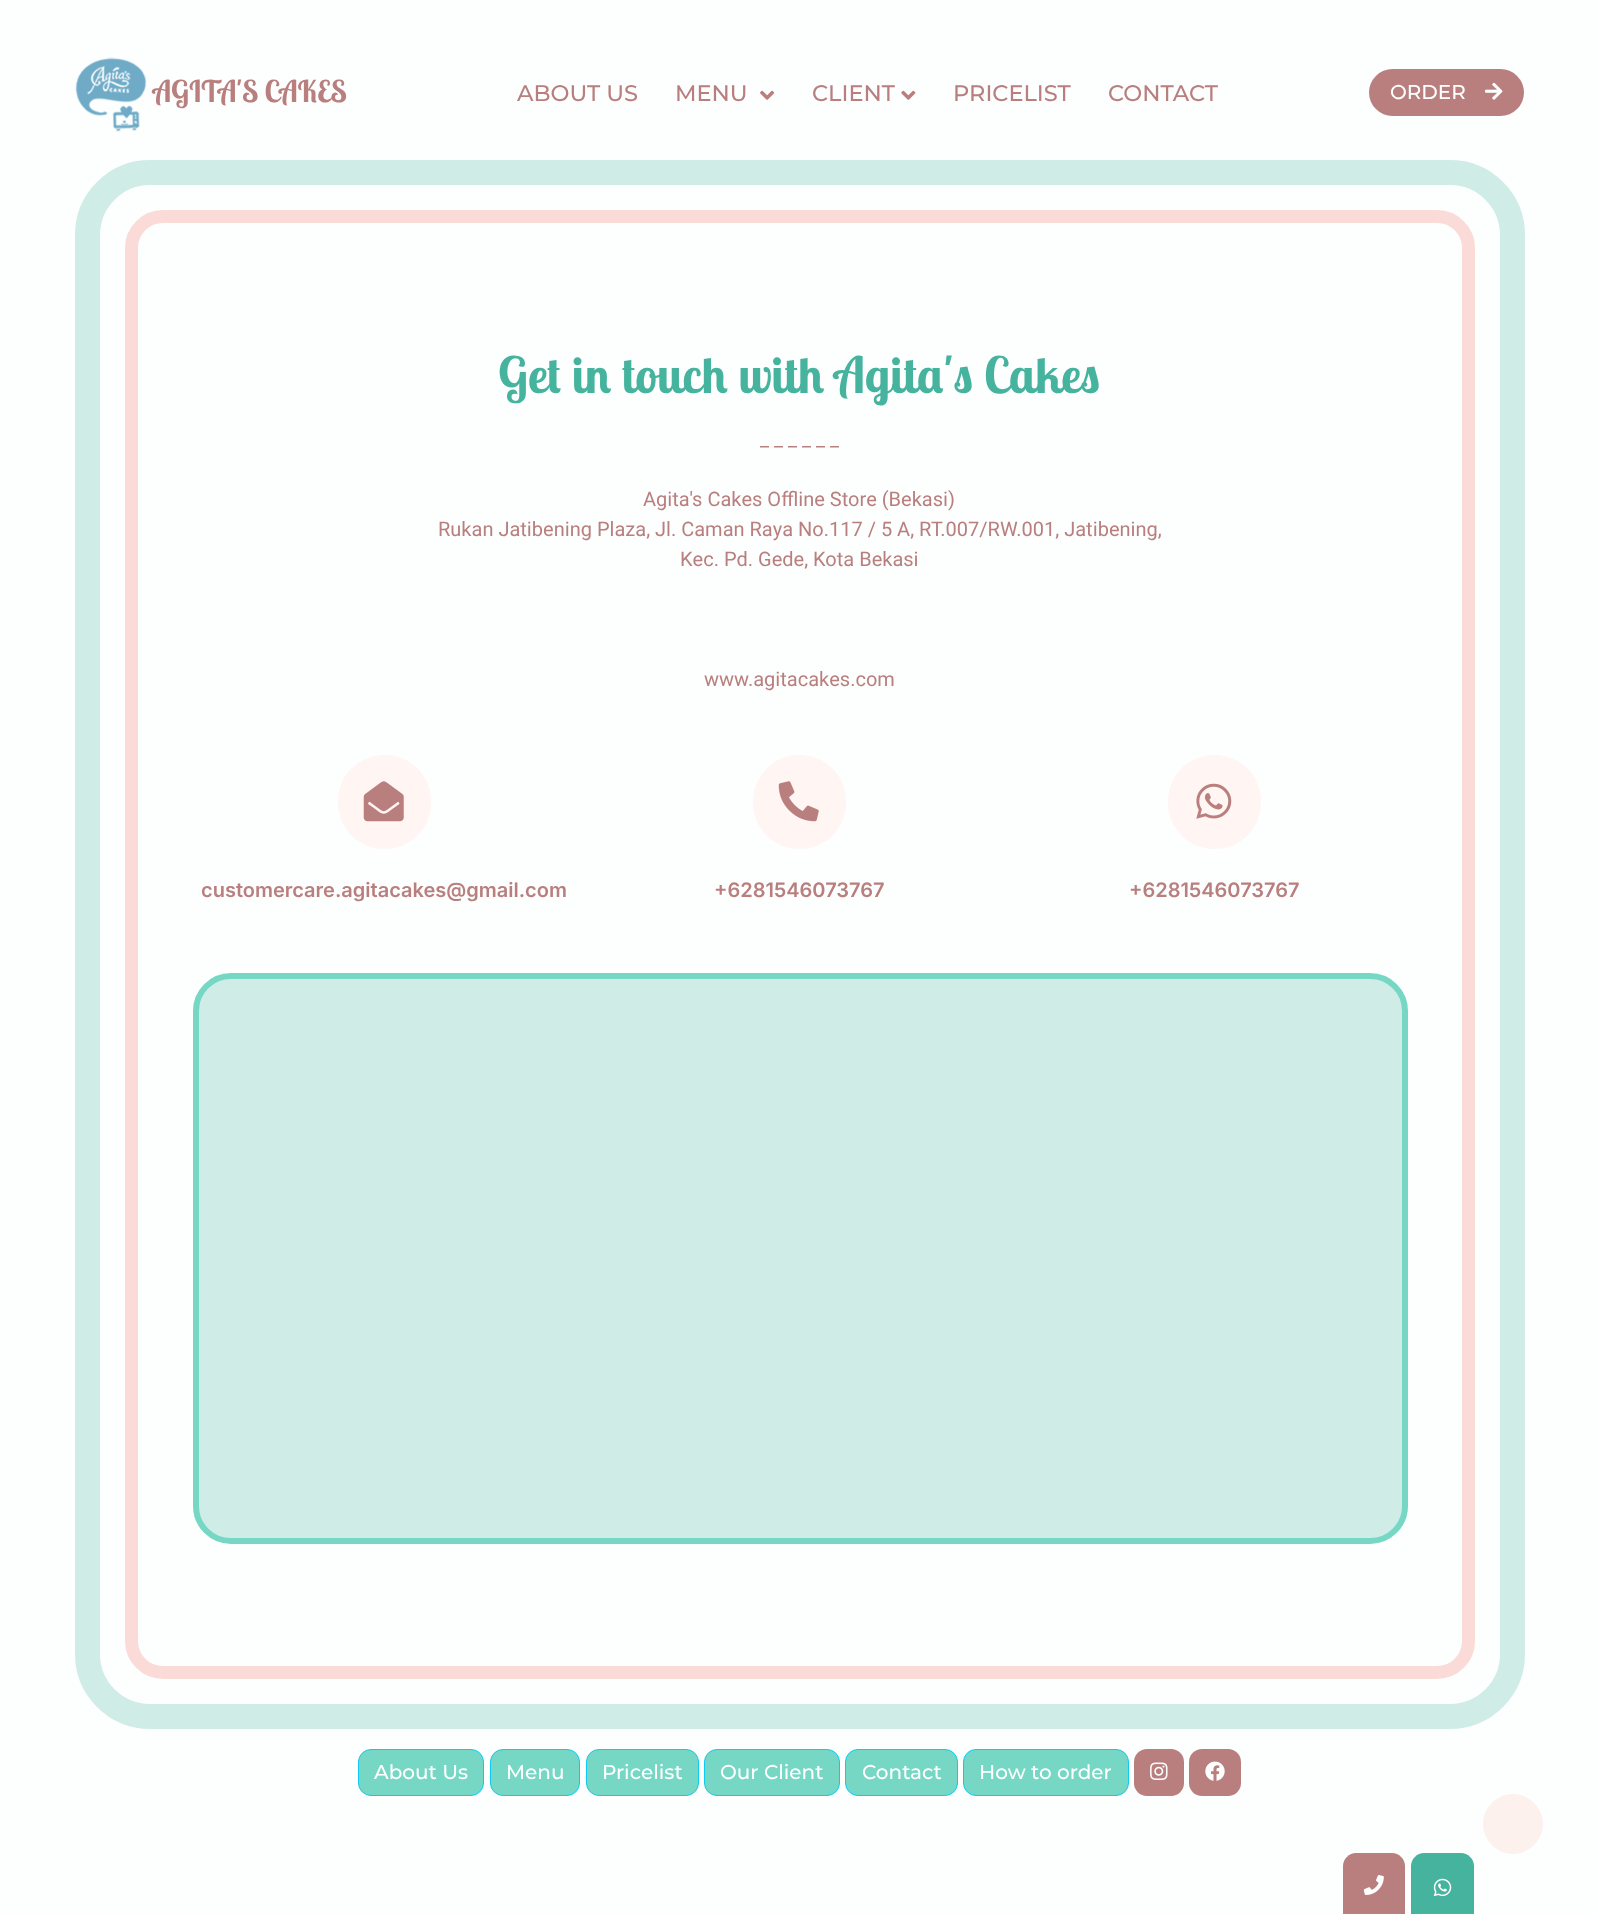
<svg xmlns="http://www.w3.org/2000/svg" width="1598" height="1914">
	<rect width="100%" height="100%" fill="#FDFEFE" />
	<image x="75" y="57" width="72" height="75" href="assets/img1.png" />
	<text x="153" y="102" font-family="Lobster Two" font-size="30" font-weight="700" fill="#B87F7E">AGITA'S CAKES</text>
	<g font-family="Montserrat" font-size="22.5" font-weight="500" fill="#B87F7E">
		<text x="517" y="101">ABOUT US</text>
		<text x="675" y="101">MENU</text>
	</g>
	<image x="760" y="90" width="15" height="10" href="assets/img2.png" />
	<text x="812" y="101" font-family="Montserrat" font-size="22.5" font-weight="500" fill="#B87F7E">CLIENT</text>
	<image x="901" y="90" width="15" height="10" href="assets/img3.png" />
	<g font-family="Montserrat" font-size="22.5" font-weight="500" fill="#B87F7E">
		<text x="953" y="101">PRICELIST</text>
		<text x="1108" y="101">CONTACT</text>
	</g>
	<rect x="1369" y="69" width="155" height="47" rx="23.5" fill="#B87F7E" />
	<text x="1390" y="99" font-family="Montserrat" font-size="20" font-weight="500" fill="#FFFFFF">ORDER</text>
	<image x="1485" y="82" width="18" height="18" href="assets/img4.png" />
	<rect x="87.5" y="172.5" width="1425" height="1544" rx="62.5" fill="none" stroke="#D0ECE7" stroke-width="25" />
	<rect x="131.5" y="216.5" width="1337" height="1456" rx="31.5" fill="none" stroke="#FADBD8" stroke-width="13" />
	<text x="498" y="393" font-family="Lobster Two" font-size="50" font-weight="700" fill="#45B39D">Get in touch with Agita's Cakes</text>
	<g font-family="Heebo" font-size="20" fill="#B87F7E">
		<text x="760" y="446">_ _ _ _ _ _</text>
		<text x="643" y="506">Agita's Cakes Offline Store (Bekasi)</text>
		<text x="438" y="536">Rukan Jatibening Plaza, Jl. Caman Raya No.117 / 5 A, RT.007/RW.001, Jatibening,</text>
		<text x="680" y="566">Kec. Pd. Gede, Kota Bekasi</text>
		<text x="704" y="686">www.agitacakes.com</text>
	</g>
	<rect x="338" y="755" width="93" height="94" rx="46.5" fill="#FFF5F3" />
	<image x="363" y="781" width="41" height="41" href="assets/img5.png" />
	<text x="201" y="897" font-family="Inter" font-size="20" font-weight="600" fill="#B87F7E">customercare.agitacakes@gmail.com</text>
	<rect x="753" y="755" width="93" height="94" rx="46.5" fill="#FFF5F3" />
	<image x="778" y="781" width="41" height="41" href="assets/img6.png" />
	<text x="714" y="897" font-family="Inter" font-size="20" font-weight="600" fill="#B87F7E">+6281546073767</text>
	<rect x="1168" y="755" width="93" height="94" rx="46.5" fill="#FFF5F3" />
	<image x="1196" y="783" width="36" height="36" href="assets/img7.png" />
	<text x="1129" y="897" font-family="Inter" font-size="20" font-weight="600" fill="#B87F7E">+6281546073767</text>
	<rect x="196" y="976" width="1209" height="565" rx="35" fill="#D0ECE7" stroke="#76D7C4" stroke-width="6" />
	<rect x="358.5" y="1749.5" width="125" height="46" rx="12.5" fill="#76D7C4" stroke="#0DCAF0" />
	<text x="374" y="1779" font-family="Montserrat" font-size="20" font-weight="500" fill="#FFFFFF">About Us</text>
	<rect x="490.5" y="1749.5" width="89" height="46" rx="12.5" fill="#76D7C4" stroke="#0DCAF0" />
	<text x="506" y="1779" font-family="Montserrat" font-size="20" font-weight="500" fill="#FFFFFF">Menu</text>
	<rect x="586.5" y="1749.5" width="112" height="46" rx="12.5" fill="#76D7C4" stroke="#0DCAF0" />
	<text x="602" y="1779" font-family="Montserrat" font-size="20" font-weight="500" fill="#FFFFFF">Pricelist</text>
	<rect x="704.5" y="1749.5" width="135" height="46" rx="12.5" fill="#76D7C4" stroke="#0DCAF0" />
	<text x="720" y="1779" font-family="Montserrat" font-size="20" font-weight="500" fill="#FFFFFF">Our Client</text>
	<rect x="845.5" y="1749.5" width="112" height="46" rx="12.5" fill="#76D7C4" stroke="#0DCAF0" />
	<text x="862" y="1779" font-family="Montserrat" font-size="20" font-weight="500" fill="#FFFFFF">Contact</text>
	<rect x="963.5" y="1749.5" width="165" height="46" rx="12.5" fill="#76D7C4" stroke="#0DCAF0" />
	<text x="979" y="1779" font-family="Montserrat" font-size="20" font-weight="500" fill="#FFFFFF">How to order</text>
	<rect x="1134" y="1749" width="50" height="47" rx="13" fill="#B87F7E" />
	<image x="1150" y="1762" width="18" height="18" href="assets/img8.png" />
	<rect x="1189" y="1749" width="52" height="47" rx="13" fill="#B87F7E" />
	<image x="1205" y="1761" width="20" height="20" href="assets/img9.png" />
	<circle cx="1513" cy="1824" r="29.5" fill="#FDF1EE" stroke="#FDF1EE" />
	<path d="M1356 1853H1392C1399 1853 1405 1859 1405 1866V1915H1343V1866C1343 1859 1349 1853 1356 1853Z" fill="#B87F7E" />
	<image x="1363" y="1875" width="21" height="20" href="assets/img10.png" />
	<path d="M1424 1853H1461C1468 1853 1474 1859 1474 1866V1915H1411V1866C1411 1859 1417 1853 1424 1853Z" fill="#45B39D" />
	<image x="1433" y="1878" width="19" height="19" href="assets/img11.png" />
</svg>
